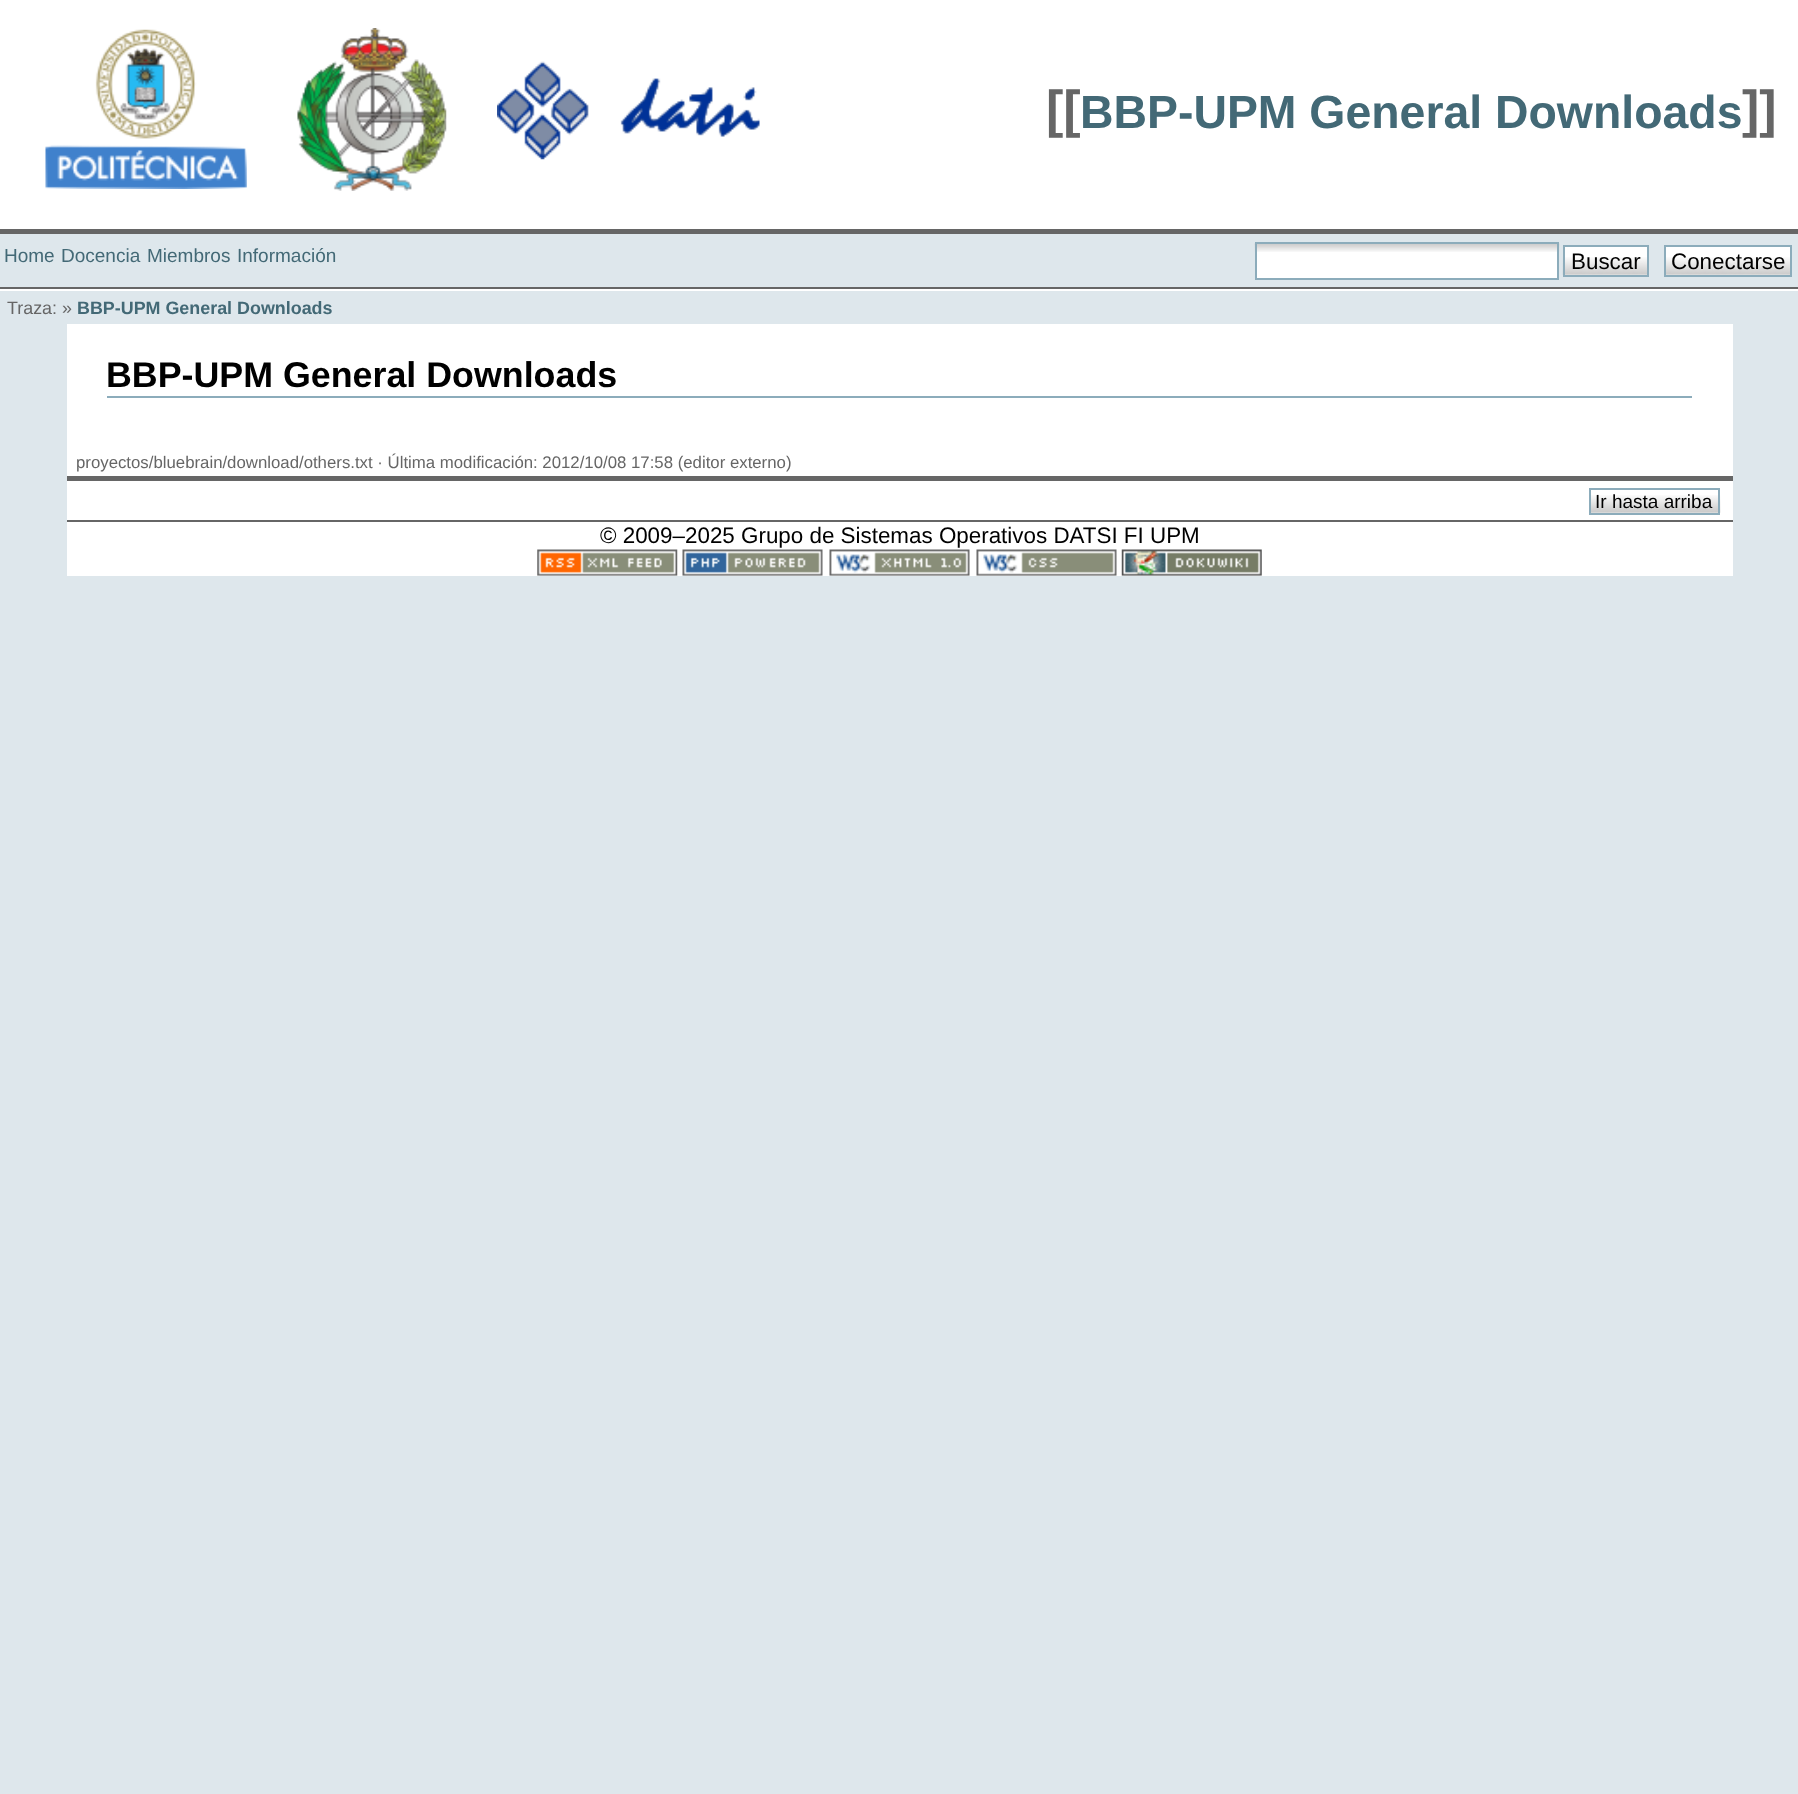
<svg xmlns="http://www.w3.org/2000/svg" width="1798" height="1794">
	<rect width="100%" height="100%" fill="#DEE7EC" />
	<rect x="0" y="0" width="1798" height="229" fill="#FFFFFF" />
	<image x="45" y="29" width="202" height="160" href="assets/img1.png" />
	<image x="297" y="28" width="150" height="163" href="assets/img2.png" />
	<image x="497" y="61" width="263" height="99" href="assets/img3.png" />
	<text x="1046" y="127" font-family="Liberation Sans" font-size="52" font-weight="700" fill="#666666">[[</text>
	<text x="1080" y="128" font-family="Liberation Sans" font-size="46.4" font-weight="700" fill="#436976">BBP-UPM General Downloads</text>
	<text x="1742" y="127" font-family="Liberation Sans" font-size="52" font-weight="700" fill="#666666">]]</text>
	<rect x="0" y="229" width="1798" height="5" fill="#666666" />
	<rect x="0" y="287" width="1798" height="2" fill="#666666" />
	<g font-family="Liberation Sans" font-size="19" fill="#436976">
		<text x="4" y="262">Home</text>
		<text x="61" y="262">Docencia</text>
		<text x="147" y="262">Miembros</text>
		<text x="237" y="262">Información</text>
	</g>
	<rect x="1257" y="244" width="300" height="34" fill="#FFFFFF" />
	<image x="1254" y="243" width="306" height="9" href="assets/img4.png" />
	<rect x="1256" y="243" width="302" height="36" fill="none" stroke="#8CACBB" stroke-width="2" />
	<rect x="1565" y="247" width="82" height="28" fill="#FFFFFF" />
	<image x="1562" y="257" width="85" height="18" href="assets/img5.png" />
	<rect x="1564" y="246" width="84" height="30" fill="none" stroke="#8CACBB" stroke-width="2" />
	<text x="1571" y="269" font-family="Liberation Sans" font-size="22.4" fill="#000000">Buscar</text>
	<rect x="1666" y="247" width="124" height="28" fill="#FFFFFF" />
	<image x="1666" y="257" width="124" height="18" href="assets/img6.png" />
	<rect x="1665" y="246" width="126" height="30" fill="none" stroke="#8CACBB" stroke-width="2" />
	<text x="1671" y="269" font-family="Liberation Sans" font-size="22.4" fill="#000000">Conectarse</text>
	<rect x="0" y="289" width="1798" height="2" fill="#FFFFFF" />
	<text x="7" y="314" font-family="Liberation Sans" font-size="17.9" fill="#666666">Traza: »</text>
	<text x="77" y="314" font-family="Liberation Sans" font-size="17.9" font-weight="700" fill="#436976">BBP-UPM General Downloads</text>
	<rect x="67" y="324" width="1666" height="252" fill="#FFFFFF" />
	<rect x="107" y="396" width="1585" height="2" fill="#8CACBB" />
	<text x="106" y="387" font-family="Liberation Sans" font-size="35.8" font-weight="700" fill="#000000">BBP-UPM General Downloads</text>
	<text x="76" y="468" font-family="Liberation Sans" font-size="16.8" fill="#666666">proyectos/bluebrain/download/others.txt · Última modificación: 2012/10/08 17:58 (editor externo)</text>
	<rect x="67" y="476" width="1666" height="5" fill="#666666" />
	<rect x="67" y="520" width="1666" height="2" fill="#666666" />
	<image x="1591" y="495" width="130" height="18" href="assets/img7.png" />
	<rect x="1590" y="489" width="129" height="25" fill="none" stroke="#8CACBB" stroke-width="2" />
	<text x="1595" y="508" font-family="Liberation Sans" font-size="19" fill="#000000">Ir hasta arriba</text>
	<text x="600" y="543" font-family="Liberation Sans" font-size="22.4" fill="#000000">© 2009–2025 Grupo de Sistemas Operativos DATSI FI UPM</text>
	<image x="537" y="549" width="141" height="27" href="assets/img8.png" />
	<image x="682" y="549" width="141" height="27" href="assets/img9.png" />
	<image x="829" y="549" width="141" height="27" href="assets/img10.png" />
	<image x="976" y="549" width="141" height="27" href="assets/img11.png" />
	<image x="1121" y="549" width="141" height="27" href="assets/img12.png" />
</svg>
